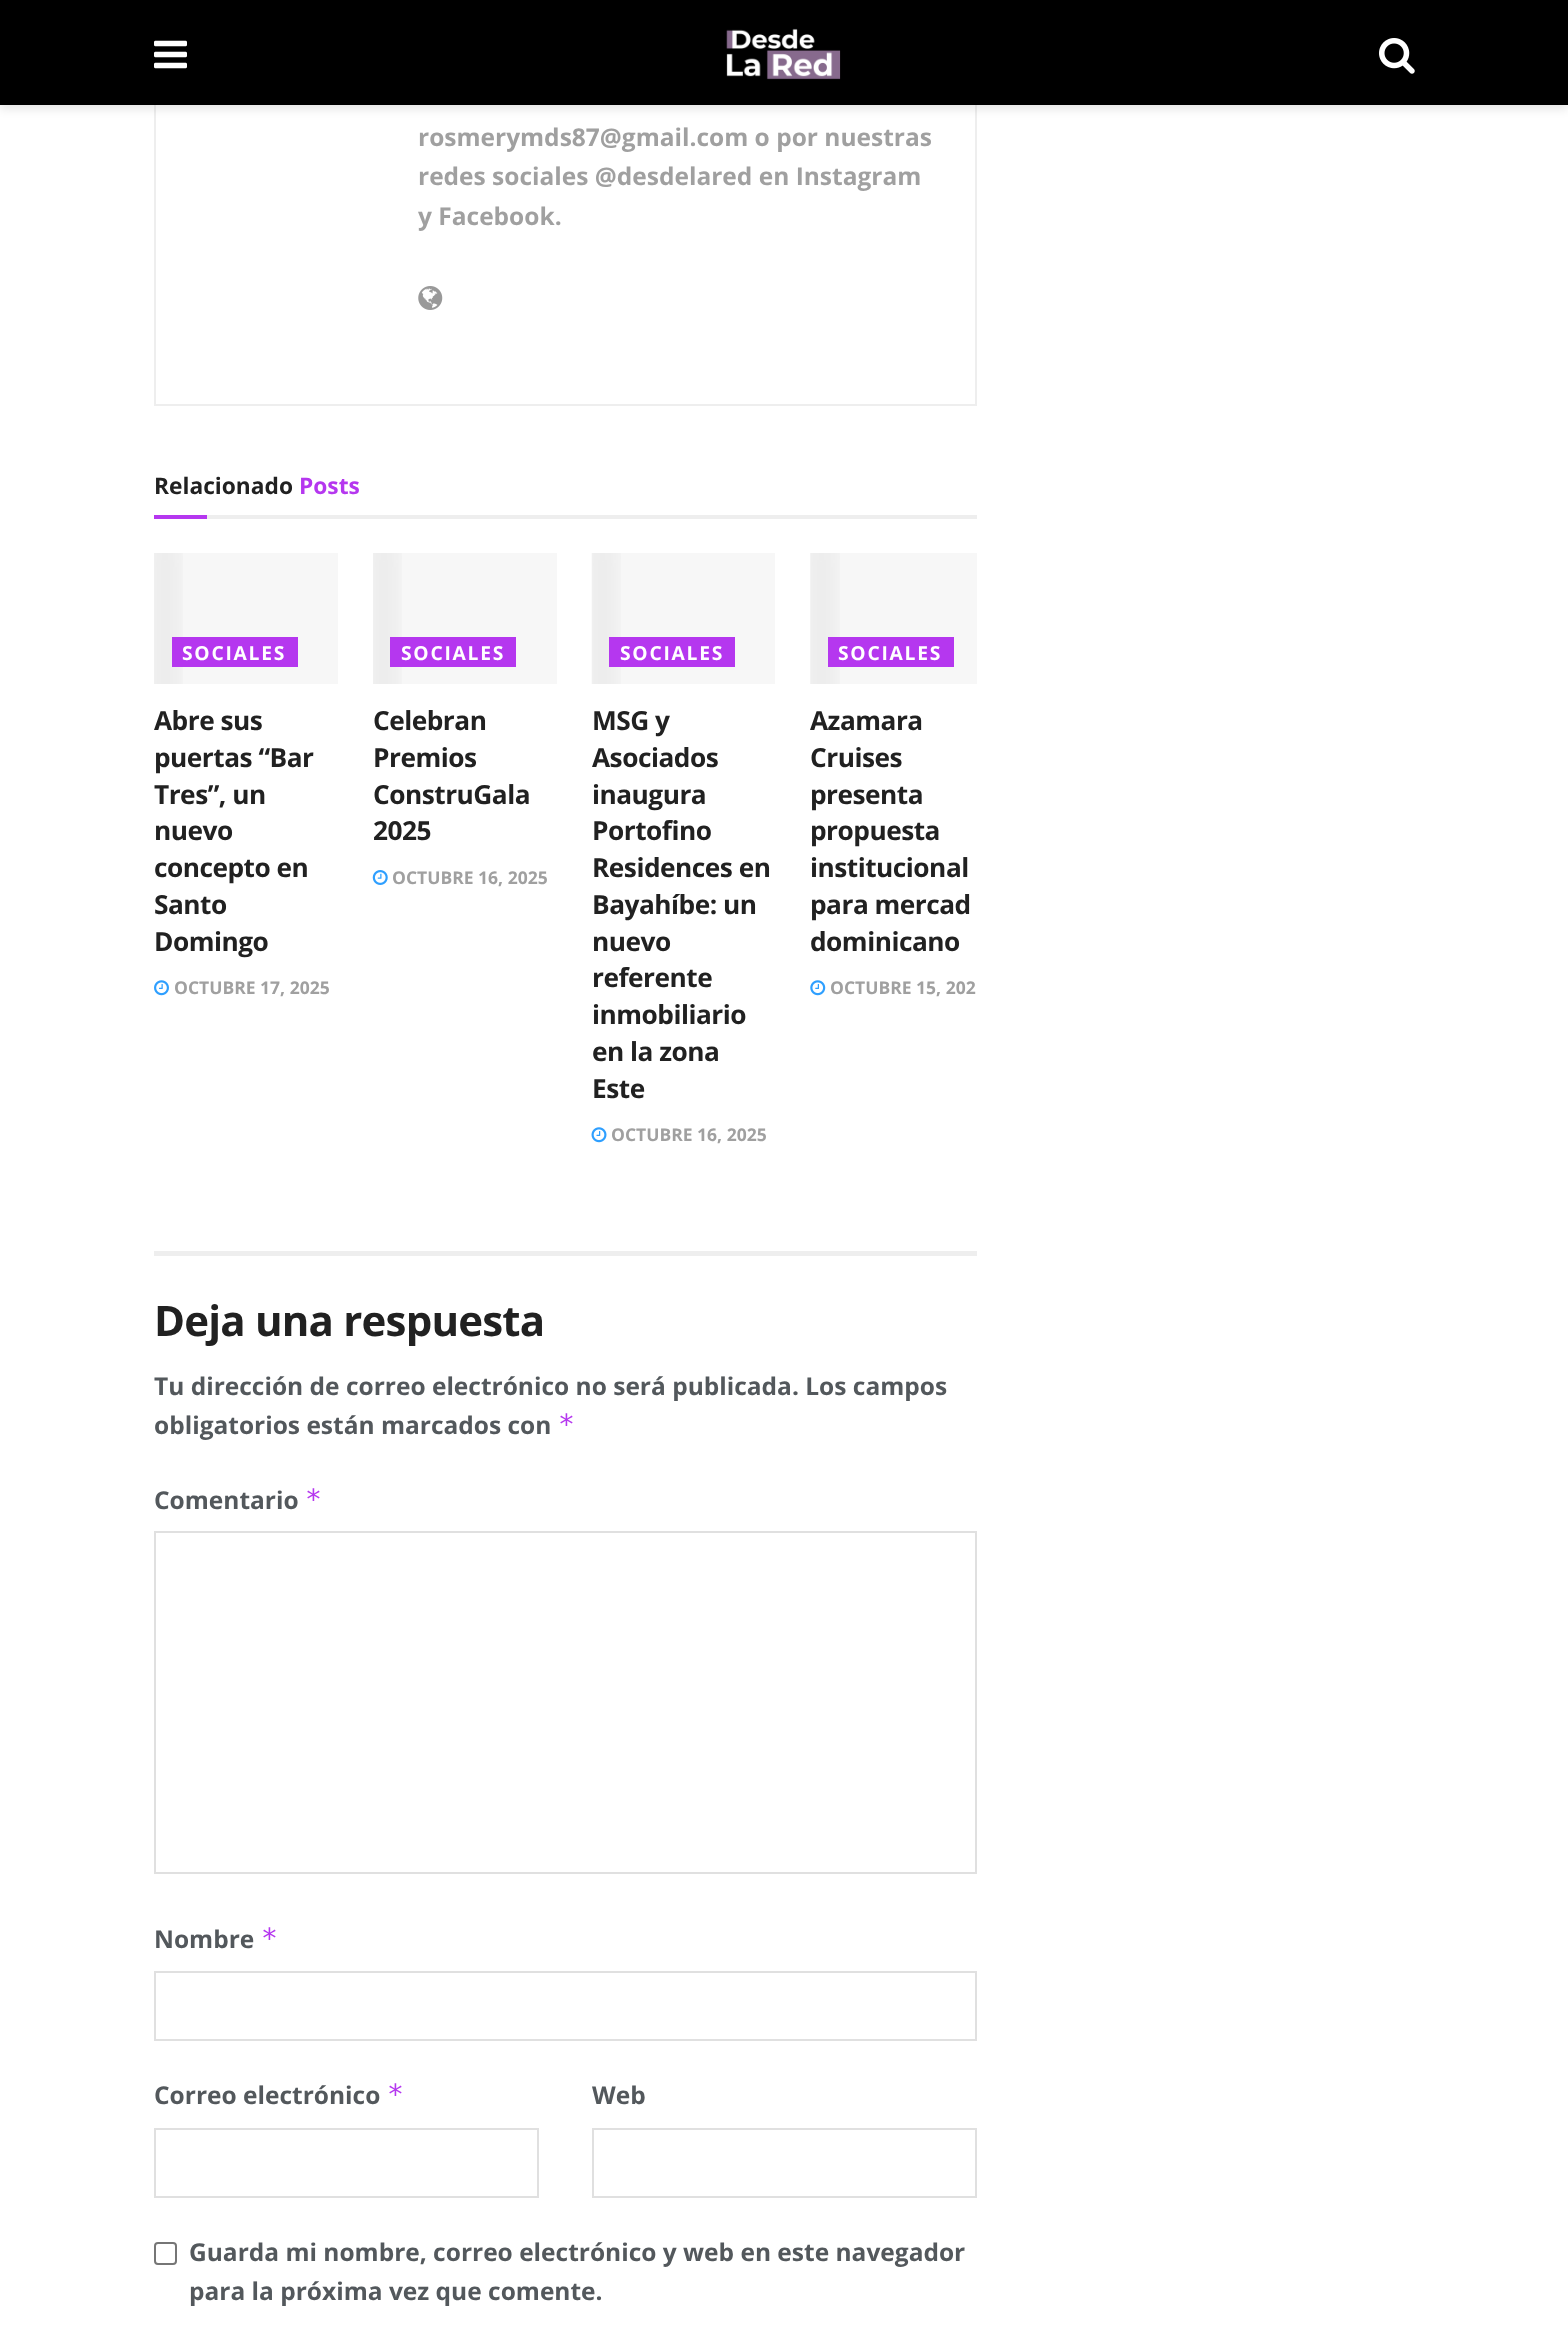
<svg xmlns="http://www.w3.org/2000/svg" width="1568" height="2328">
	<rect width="100%" height="100%" fill="#FFFFFF" />
	<rect x="155" y="-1" width="821" height="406" fill="none" stroke="#EEEEEE" stroke-width="2" />
	<rect x="0" y="4" width="1568" height="105" fill="#000000" fill-opacity="0.1" filter="blur(5px)" />
	<rect x="0" y="0" width="1568" height="105" fill="#000000" />
	<image x="154" y="40" width="33" height="29" href="assets/img1.png" />
	<image x="726" y="28" width="115" height="52" href="assets/img2.png" />
	<image x="1379" y="38" width="36" height="36" href="assets/img3.png" />
	<g font-family="Open Sans" font-size="24.5" font-weight="700" fill="#A0A0A0">
		<text x="418" y="146">rosmerymds87@gmail.com o por nuestras</text>
		<text x="418" y="185">redes sociales @desdelared en Instagram</text>
		<text x="418" y="225">y Facebook.</text>
	</g>
	<image x="418" y="286" width="25" height="24" href="assets/img4.png" />
	<rect x="207" y="515" width="770" height="4" fill="#EEEEEE" />
	<text x="154" y="494" font-family="Open Sans" font-size="22.75" font-weight="700" fill="#212121">Relacionado</text>
	<text x="299" y="494" font-family="Open Sans" font-size="22.75" font-weight="700" fill="#B537EF">Posts</text>
	<rect x="154" y="515" width="53" height="4" fill="#B537EF" />
	<rect x="183" y="553" width="155" height="131" fill="#F7F7F7" />
	<image x="154" y="553" width="29" height="131" href="assets/img5.png" />
	<rect x="172" y="637" width="126" height="30" fill="#B537EF" />
	<text x="182" y="660" font-family="Open Sans" font-size="19.25" font-weight="700" letter-spacing="1.75" fill="#FFFFFF">SOCIALES</text>
	<g font-family="Open Sans" font-size="26.25" font-weight="700" letter-spacing="-0.5" fill="#212121">
		<text x="154" y="730">Abre sus</text>
		<text x="154" y="767">puertas “Bar</text>
		<text x="154" y="804">Tres”, un</text>
		<text x="154" y="840">nuevo</text>
		<text x="154" y="877">concepto en</text>
		<text x="154" y="914">Santo</text>
		<text x="154" y="951">Domingo</text>
	</g>
	<image x="154" y="980" width="15" height="16" href="assets/img6.png" />
	<text x="174" y="994" font-family="Open Sans" font-size="17.5" font-weight="700" fill="#A0A0A0">OCTUBRE 17, 2025</text>
	<rect x="402" y="553" width="155" height="131" fill="#F7F7F7" />
	<image x="373" y="553" width="29" height="131" href="assets/img7.png" />
	<rect x="390" y="637" width="126" height="30" fill="#B537EF" />
	<text x="401" y="660" font-family="Open Sans" font-size="19.25" font-weight="700" letter-spacing="1.75" fill="#FFFFFF">SOCIALES</text>
	<g font-family="Open Sans" font-size="26.25" font-weight="700" letter-spacing="-0.5" fill="#212121">
		<text x="373" y="730">Celebran</text>
		<text x="373" y="767">Premios</text>
		<text x="373" y="804">ConstruGala</text>
		<text x="373" y="840">2025</text>
	</g>
	<image x="372" y="870" width="16" height="15" href="assets/img8.png" />
	<text x="392" y="884" font-family="Open Sans" font-size="17.5" font-weight="700" fill="#A0A0A0">OCTUBRE 16, 2025</text>
	<rect x="621" y="553" width="154" height="131" fill="#F7F7F7" />
	<image x="591" y="553" width="30" height="131" href="assets/img9.png" />
	<rect x="609" y="637" width="126" height="30" fill="#B537EF" />
	<text x="620" y="660" font-family="Open Sans" font-size="19.25" font-weight="700" letter-spacing="1.75" fill="#FFFFFF">SOCIALES</text>
	<g font-family="Open Sans" font-size="26.25" font-weight="700" letter-spacing="-0.5" fill="#212121">
		<text x="592" y="730">MSG y</text>
		<text x="592" y="767">Asociados</text>
		<text x="592" y="804">inaugura</text>
		<text x="592" y="840">Portofino</text>
		<text x="592" y="877">Residences en</text>
		<text x="592" y="914">Bayahíbe: un</text>
		<text x="592" y="951">nuevo</text>
		<text x="592" y="987">referente</text>
		<text x="592" y="1024">inmobiliario</text>
		<text x="592" y="1061">en la zona</text>
		<text x="592" y="1098">Este</text>
	</g>
	<image x="591" y="1127" width="16" height="16" href="assets/img10.png" />
	<text x="611" y="1141" font-family="Open Sans" font-size="17.5" font-weight="700" fill="#A0A0A0">OCTUBRE 16, 2025</text>
	<rect x="810" y="553" width="167" height="131" fill="#F7F7F7" />
	<image x="810" y="553" width="30" height="131" href="assets/img11.png" />
	<rect x="828" y="637" width="126" height="30" fill="#B537EF" />
	<text x="838" y="660" font-family="Open Sans" font-size="19.25" font-weight="700" letter-spacing="1.75" fill="#FFFFFF">SOCIALES</text>
	<g font-family="Open Sans" font-size="26.25" font-weight="700" letter-spacing="-0.5" fill="#212121">
		<text x="810" y="730">Azamara</text>
		<text x="810" y="767">Cruises</text>
		<text x="810" y="804">presenta</text>
		<text x="810" y="840">propuesta</text>
		<text x="810" y="877">institucional</text>
		<text x="810" y="914">para mercad</text>
		<text x="810" y="951">dominicano</text>
	</g>
	<image x="810" y="980" width="16" height="16" href="assets/img12.png" />
	<text x="830" y="994" font-family="Open Sans" font-size="17.5" font-weight="700" fill="#A0A0A0">OCTUBRE 15, 202</text>
	<rect x="154" y="1251" width="823" height="5" fill="#EEEEEE" />
	<text x="154" y="1336" font-family="Open Sans" font-size="42" font-weight="700" letter-spacing="-0.8" fill="#212121">Deja una respuesta</text>
	<g font-family="Open Sans" font-size="24.5" font-weight="700" fill="#53585C">
		<text x="154" y="1395">Tu dirección de correo electrónico no será publicada. Los campos</text>
		<text x="154" y="1434">obligatorios están marcados con</text>
	</g>
	<text x="558" y="1434" font-family="DejaVu Sans Mono" font-size="28" fill="#B537EF">*</text>
	<text x="154" y="1509" font-family="Open Sans" font-size="24.5" font-weight="700" fill="#53585C">Comentario</text>
	<text x="305" y="1509" font-family="DejaVu Sans Mono" font-size="28" fill="#B537EF">*</text>
	<rect x="155" y="1532" width="821" height="341" fill="none" stroke="#E0E0E0" stroke-width="2" />
	<text x="154" y="1948" font-family="Open Sans" font-size="24.5" font-weight="700" fill="#53585C">Nombre</text>
	<text x="261" y="1948" font-family="DejaVu Sans Mono" font-size="28" fill="#B537EF">*</text>
	<rect x="155" y="1972" width="821" height="68" fill="none" stroke="#E0E0E0" stroke-width="2" />
	<text x="154" y="2104" font-family="Open Sans" font-size="24.5" font-weight="700" fill="#53585C">Correo electrónico</text>
	<text x="387" y="2104" font-family="DejaVu Sans Mono" font-size="28" fill="#B537EF">*</text>
	<rect x="155" y="2129" width="383" height="68" fill="none" stroke="#E0E0E0" stroke-width="2" />
	<text x="592" y="2104" font-family="Open Sans" font-size="24.5" font-weight="700" fill="#53585C">Web</text>
	<rect x="593" y="2129" width="383" height="68" fill="none" stroke="#E0E0E0" stroke-width="2" />
	<rect x="155" y="2243" width="21" height="21" rx="3" fill="none" stroke="#767676" stroke-width="2" />
	<g font-family="Open Sans" font-size="24.5" font-weight="700" fill="#53585C">
		<text x="189" y="2261">Guarda mi nombre, correo electrónico y web en este navegador</text>
		<text x="189" y="2300">para la próxima vez que comente.</text>
	</g>
</svg>
